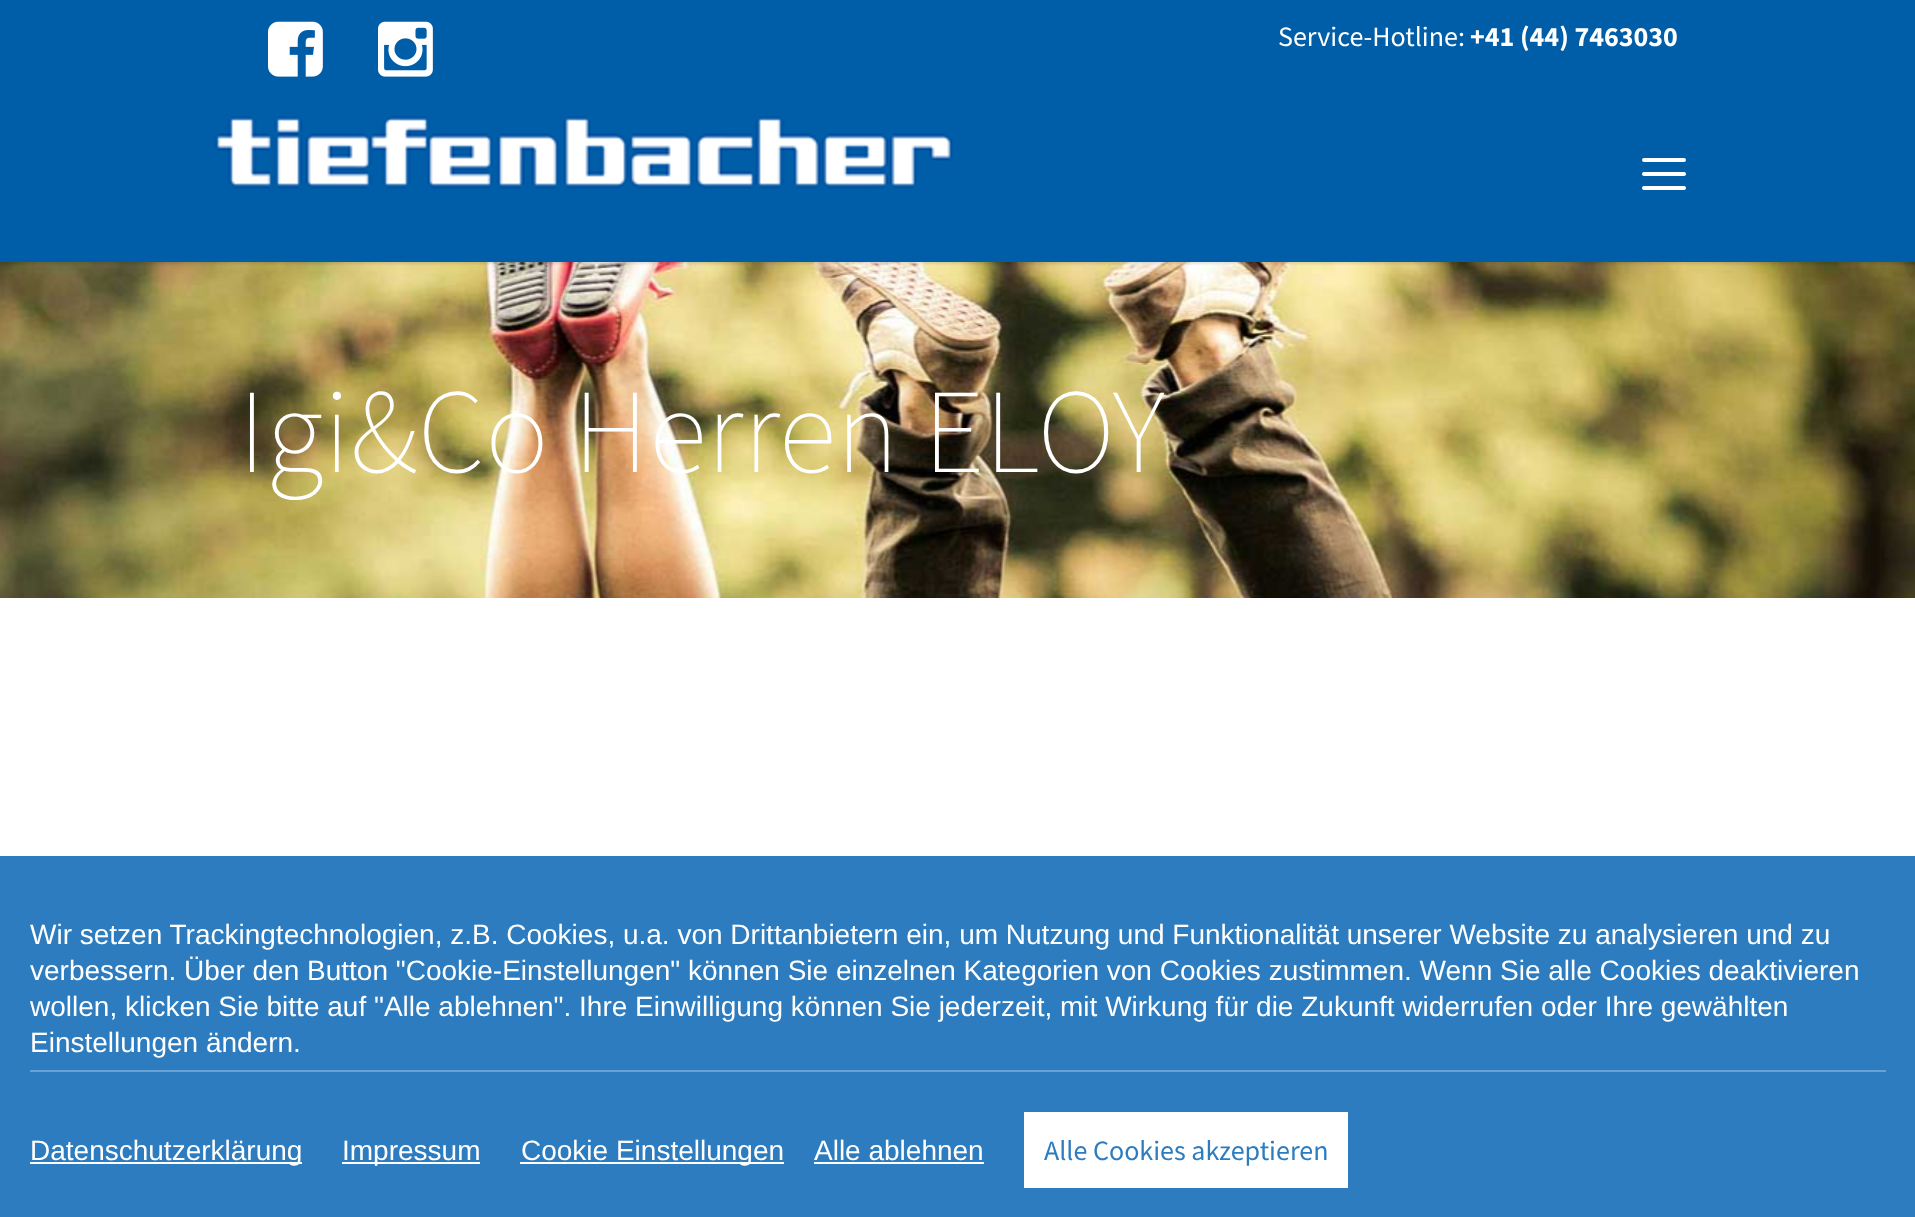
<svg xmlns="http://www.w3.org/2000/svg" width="1915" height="1217">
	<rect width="100%" height="100%" fill="#FFFFFF" />
	<rect x="0" y="0" width="1915" height="82" fill="#005EA8" />
	<image x="268" y="21" width="55" height="56" href="assets/img1.png" />
	<image x="378" y="21" width="55" height="56" href="assets/img2.png" />
	<text x="1278" y="46" font-family="Source Sans Pro" font-size="28" fill="#FFFFFF">Service-Hotline:</text>
	<text x="1470" y="46" font-family="Source Sans Pro" font-size="28" font-weight="700" fill="#FFFFFF">+41 (44) 7463030</text>
	<image x="0" y="262" width="1915" height="336" href="assets/img4.png" />
	<rect x="0" y="84" width="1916" height="180" fill="#000000" fill-opacity="0.1" filter="blur(1px)" />
	<rect x="0" y="82" width="1915" height="180" fill="#005EA8" />
	<image x="214" y="116" width="739" height="73" href="assets/img3.png" />
	<rect x="1642" y="158" width="44" height="4" rx="2" fill="#FFFFFF" />
	<rect x="1642" y="172" width="44" height="4" rx="2" fill="#FFFFFF" />
	<rect x="1642" y="186" width="44" height="4" rx="2" fill="#FFFFFF" />
	<text x="238" y="472" font-family="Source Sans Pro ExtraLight" font-size="120" font-weight="200" fill="#FFFFFF">Igi&amp;Co Herren ELOY</text>
	<rect x="0" y="856" width="1915" height="361" fill="#2C7CBF" />
	<rect x="30" y="1070" width="1856" height="2" fill="#69A2D2" />
	<g font-family="Liberation Sans" font-size="28" fill="#FFFFFF">
		<text x="30" y="944">Wir setzen Trackingtechnologien, z.B. Cookies, u.a. von Drittanbietern ein, um Nutzung und Funktionalität unserer Website zu analysieren und zu</text>
		<text x="30" y="980">verbessern. Über den Button "Cookie-Einstellungen" können Sie einzelnen Kategorien von Cookies zustimmen. Wenn Sie alle Cookies deaktivieren</text>
		<text x="30" y="1016">wollen, klicken Sie bitte auf "Alle ablehnen". Ihre Einwilligung können Sie jederzeit, mit Wirkung für die Zukunft widerrufen oder Ihre gewählten</text>
		<text x="30" y="1052">Einstellungen ändern.</text>
	</g>
	<rect x="30" y="1162" width="272" height="2" fill="#FFFFFF" />
	<text x="30" y="1160" font-family="Liberation Sans" font-size="28" fill="#FFFFFF">Datenschutzerklärung</text>
	<rect x="342" y="1162" width="138" height="2" fill="#FFFFFF" />
	<text x="342" y="1160" font-family="Liberation Sans" font-size="28" fill="#FFFFFF">Impressum</text>
	<rect x="520" y="1162" width="264" height="2" fill="#FFFFFF" />
	<g font-family="Liberation Sans" font-size="28" fill="#FFFFFF">
		<text x="521" y="1160">Cookie Einstellungen</text>
		<text x="814" y="1160">Alle ablehnen</text>
	</g>
	<rect x="814" y="1162" width="170" height="2" fill="#FFFFFF" />
	<rect x="1024" y="1112" width="324" height="76" fill="#FFFFFF" />
	<text x="1044" y="1160" font-family="Source Sans Pro" font-size="28" fill="#2C7CBF">Alle Cookies akzeptieren</text>
</svg>
